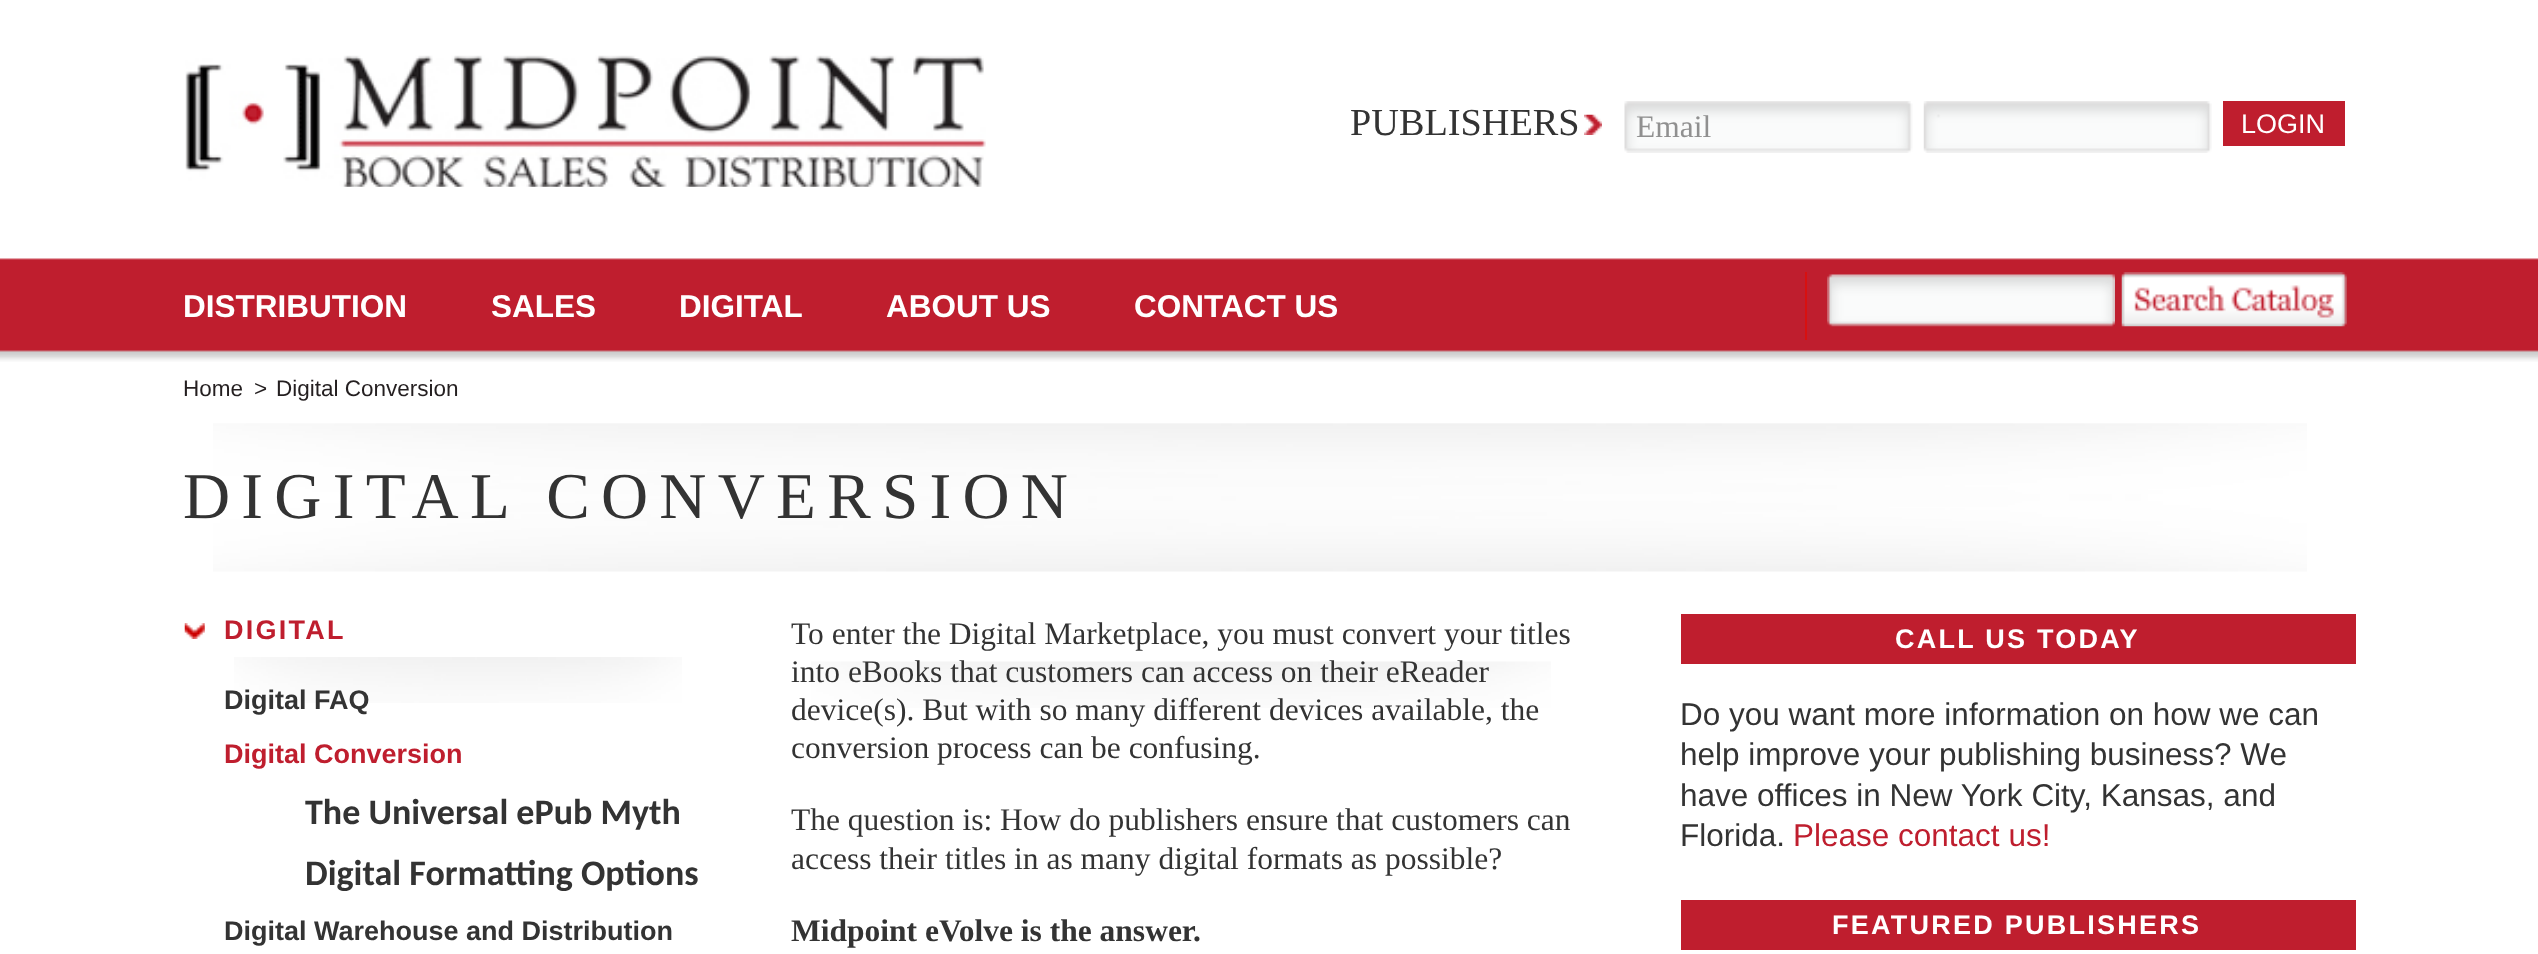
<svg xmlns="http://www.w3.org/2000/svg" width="2538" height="954">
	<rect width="100%" height="100%" fill="#FFFFFF" />
	<image x="0" y="258" width="2538" height="104" href="assets/img1.png" />
	<image x="185" y="55" width="801" height="132" href="assets/img2.png" />
	<image x="1584" y="114" width="18" height="21" href="assets/img3.png" />
	<text x="1350" y="135" font-family="Liberation Serif" font-size="38.25" fill="#333333">PUBLISHERS</text>
	<image x="1624" y="101" width="289" height="52" href="assets/img4.png" />
	<text x="1636" y="137" font-family="Liberation Serif" font-size="31.5" fill="#909090">Email</text>
	<image x="1923" y="101" width="289" height="52" href="assets/img5.png" />
	<rect x="2223" y="101" width="122" height="45" fill="#BF1E2E" />
	<text x="2241" y="133" font-family="Liberation Sans" font-size="27" fill="#FFFFFF">LOGIN</text>
	<g font-family="Liberation Sans" font-size="31.5" font-weight="700" fill="#FFFFFF">
		<text x="183" y="317">DISTRIBUTION</text>
		<text x="491" y="317">SALES</text>
		<text x="679" y="317">DIGITAL</text>
		<text x="886" y="317">ABOUT US</text>
		<text x="1134" y="317">CONTACT US</text>
	</g>
	<rect x="1805" y="272" width="2" height="68" fill="#D81010" />
	<image x="1827" y="274" width="288" height="53" href="assets/img6.png" />
	<image x="2121" y="272" width="226" height="55" href="assets/img7.png" />
	<g font-family="Liberation Sans" font-size="22.5" fill="#241F20">
		<text x="183" y="396">Home</text>
		<text x="254" y="396">&gt;</text>
		<text x="276" y="396">Digital Conversion</text>
	</g>
	<image x="213" y="423" width="2094" height="149" href="assets/img8.png" />
	<text x="183" y="518" font-family="Liberation Serif" font-size="65.25" letter-spacing="11.25" fill="#333333">DIGITAL CONVERSION</text>
	<image x="184" y="623" width="21" height="16" href="assets/img9.png" />
	<text x="224" y="639" font-family="Liberation Sans" font-size="27" font-weight="700" letter-spacing="2.25" fill="#BF1E2E">DIGITAL</text>
	<image x="234" y="657" width="448" height="46" href="assets/img10.png" />
	<text x="224" y="709" font-family="Liberation Sans" font-size="27" font-weight="700" fill="#333333">Digital FAQ</text>
	<text x="224" y="763" font-family="Liberation Sans" font-size="27" font-weight="700" fill="#BF1E2E">Digital Conversion</text>
	<g font-family="Carlito" font-size="36" font-weight="700" fill="#333333">
		<text x="305" y="824">The Universal ePub Myth</text>
		<text x="305" y="885">Digital Formatting Options</text>
	</g>
	<text x="224" y="940" font-family="Liberation Sans" font-size="27" font-weight="700" fill="#333333">Digital Warehouse and Distribution</text>
	<image x="811" y="661" width="740" height="47" href="assets/img11.png" />
	<g font-family="Liberation Serif" font-size="31.5" fill="#333333">
		<text x="791" y="644">To enter the Digital Marketplace, you must convert your titles</text>
		<text x="791" y="682">into eBooks that customers can access on their eReader</text>
		<text x="791" y="720">device(s). But with so many different devices available, the</text>
		<text x="791" y="758">conversion process can be confusing.</text>
		<text x="791" y="830">The question is: How do publishers ensure that customers can</text>
		<text x="791" y="869">access their titles in as many digital formats as possible?</text>
	</g>
	<text x="791" y="941" font-family="Liberation Serif" font-size="31.5" font-weight="700" fill="#333333">Midpoint eVolve is the answer.</text>
	<rect x="1681" y="614" width="675" height="50" fill="#BF1E2E" />
	<text x="1895" y="648" font-family="Liberation Sans" font-size="27" font-weight="700" letter-spacing="2.25" fill="#FFFFFF">CALL US TODAY</text>
	<g font-family="Liberation Sans" font-size="31.5" fill="#333333">
		<text x="1680" y="725">Do you want more information on how we can</text>
		<text x="1680" y="765">help improve your publishing business? We</text>
		<text x="1680" y="806">have offices in New York City, Kansas, and</text>
		<text x="1680" y="846">Florida.</text>
	</g>
	<text x="1793" y="846" font-family="Liberation Sans" font-size="31.5" fill="#BF1E2E">Please contact us!</text>
	<rect x="1681" y="900" width="675" height="50" fill="#BF1E2E" />
	<text x="1832" y="934" font-family="Liberation Sans" font-size="27" font-weight="700" letter-spacing="2.25" fill="#FFFFFF">FEATURED PUBLISHERS</text>
</svg>
